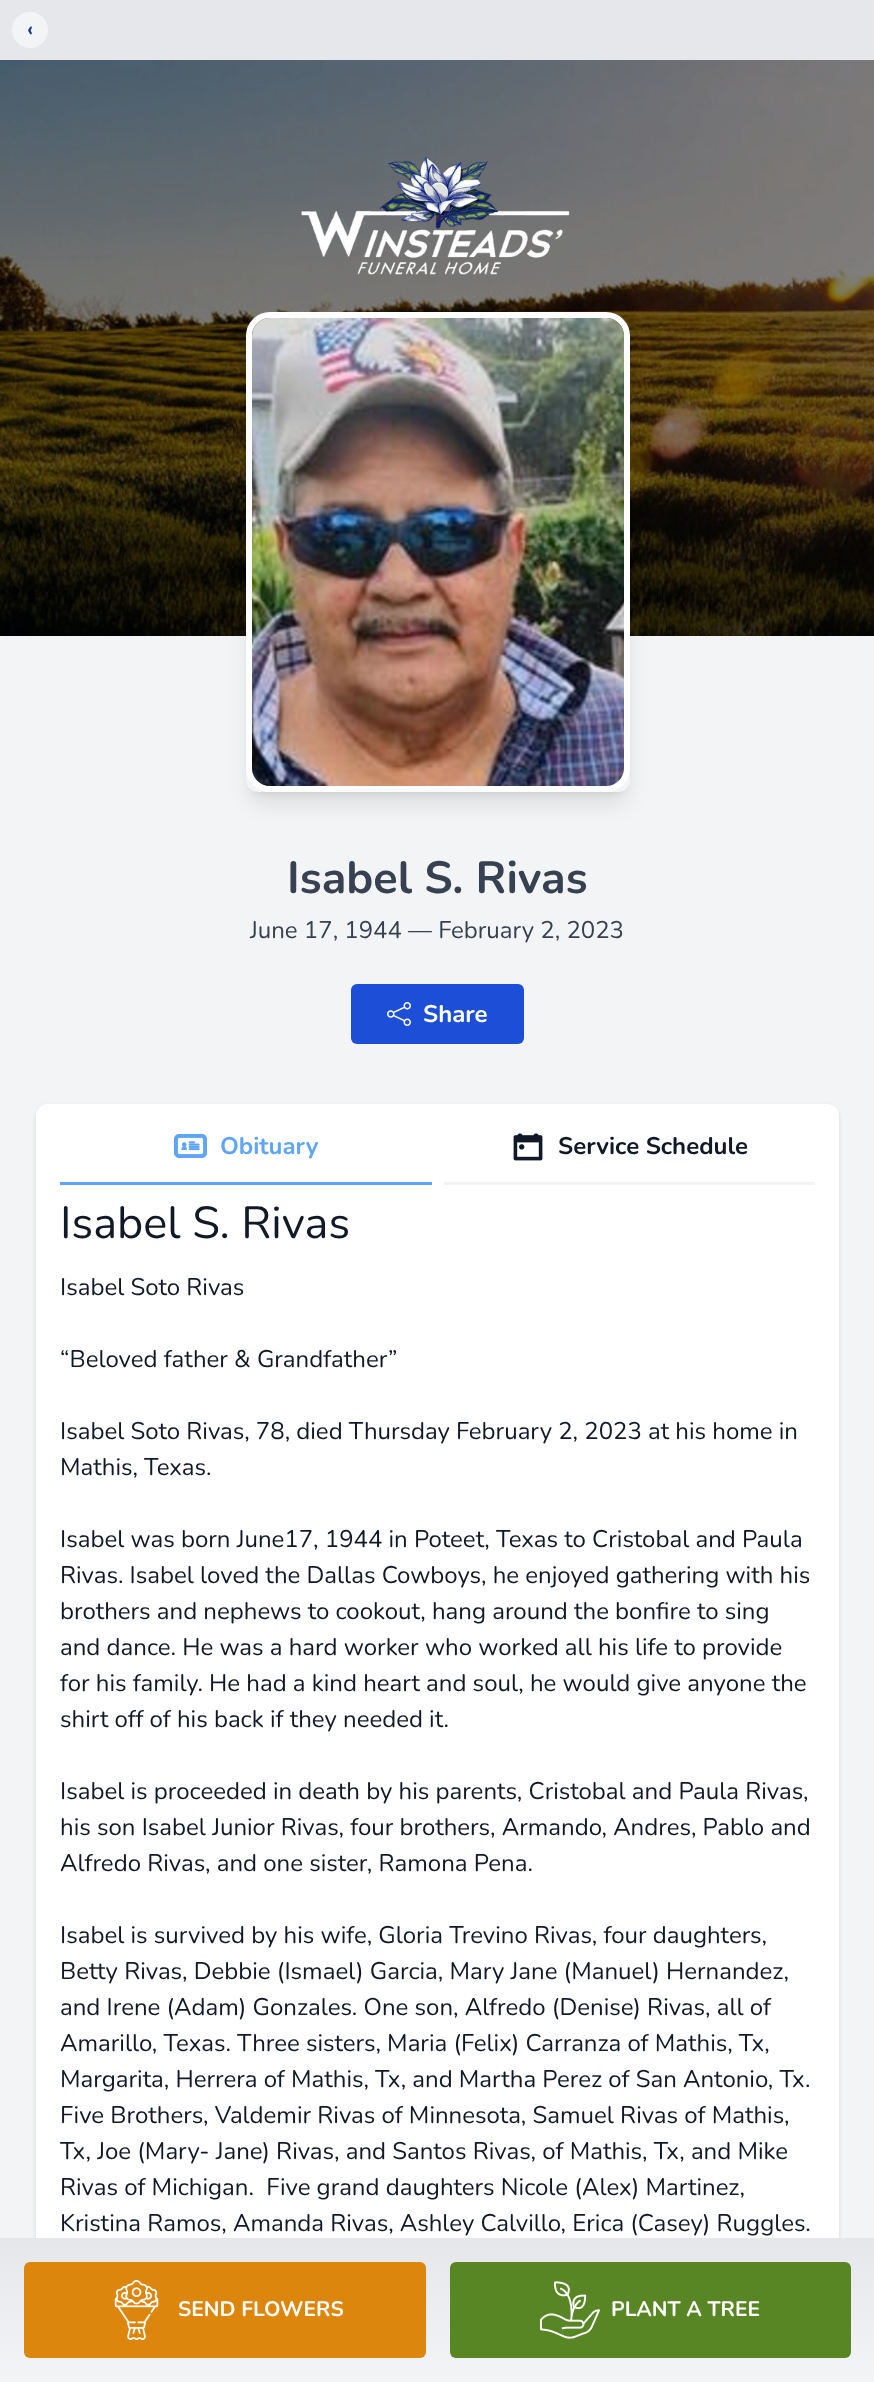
<svg xmlns="http://www.w3.org/2000/svg" width="874" height="2382">
	<defs>
		<clipPath id="clip1"><path d="M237 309H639V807H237ZM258 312H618C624.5 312 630 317.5 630 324V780C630 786.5 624.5 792 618 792H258C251.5 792 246 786.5 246 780V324C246 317.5 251.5 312 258 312Z" clip-rule="evenodd" /></clipPath>
		<clipPath id="clip2"><path d="M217 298H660V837H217ZM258 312H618C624.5 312 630 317.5 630 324V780C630 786.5 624.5 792 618 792H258C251.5 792 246 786.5 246 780V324C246 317.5 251.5 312 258 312Z" clip-rule="evenodd" /></clipPath>
		<linearGradient id="g1" gradientUnits="userSpaceOnUse" x1="437" y1="2238" x2="437" y2="2382"><stop offset="0" stop-color="#E5E7EB" /><stop offset="1" stop-color="#F3F4F6" /></linearGradient>
	</defs>
	<rect width="100%" height="100%" fill="#F3F4F6" />
	<rect x="0" y="0" width="874" height="60" fill="#E5E7EB" />
	<circle cx="30" cy="30" r="18" fill="#F3F4F6" />
	<text x="27" y="36" font-family="Nunito" font-size="21" font-weight="700" fill="#1E3A8A">‹</text>
	<image x="0" y="60" width="874" height="576" href="assets/img1.png" />
	<image x="301" y="157" width="269" height="118" href="assets/img2.png" />
	<g clip-path="url(#clip1)">
		<rect x="252" y="324" width="372" height="468" rx="6" fill="#000000" fill-opacity="0.1" filter="blur(4.5px)" />
	</g>
	<g clip-path="url(#clip2)">
		<rect x="251" y="332" width="375" height="471" rx="8" fill="#000000" fill-opacity="0.1" filter="blur(11px)" />
	</g>
	<rect x="249" y="315" width="378" height="474" rx="21" fill="none" stroke="#FFFFFF" stroke-width="6" />
	<image x="252" y="318" width="372" height="468" href="assets/img3.png" />
	<text x="287" y="893" font-family="Nunito" font-size="45" font-weight="700" fill="#374151">Isabel S. Rivas</text>
	<text x="250" y="938" font-family="Nunito" font-size="24" fill="#374151">June 17, 1944 — February 2, 2023</text>
	<rect x="351" y="984" width="173" height="60" rx="6" fill="#1D4ED8" />
	<image x="387" y="1002" width="24" height="24" href="assets/img4.png" />
	<text x="423" y="1022" font-family="Nunito" font-size="24" font-weight="700" fill="#FFFFFF">Share</text>
	<rect x="36" y="1106" width="803" height="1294" rx="12" fill="#000000" fill-opacity="0.1" filter="blur(2px)" />
	<rect x="36" y="1104" width="803" height="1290" rx="12" fill="#FFFFFF" />
	<rect x="60" y="1182" width="372" height="3" fill="#60A5FA" />
	<image x="174" y="1134" width="33" height="24" href="assets/img5.png" />
	<text x="220" y="1154" font-family="Nunito" font-size="24" font-weight="700" fill="#60A5FA">Obituary</text>
	<rect x="444" y="1182" width="371" height="3" fill="#F3F4F6" />
	<image x="513" y="1133" width="30" height="28" href="assets/img6.png" />
	<text x="558" y="1154" font-family="Nunito" font-size="24" font-weight="700" fill="#111827">Service Schedule</text>
	<text x="60" y="1238" font-family="Nunito" font-size="45" fill="#111827">Isabel S. Rivas</text>
	<g font-family="Nunito" font-size="24" fill="#111827">
		<text x="60" y="1295">Isabel Soto Rivas</text>
		<text x="60" y="1367">“Beloved father &amp; Grandfather”</text>
		<text x="60" y="1439">Isabel Soto Rivas, 78, died Thursday February 2, 2023 at his home in</text>
		<text x="60" y="1475">Mathis, Texas.</text>
		<text x="60" y="1547">Isabel was born June17, 1944 in Poteet, Texas to Cristobal and Paula</text>
		<text x="60" y="1583">Rivas. Isabel loved the Dallas Cowboys, he enjoyed gathering with his</text>
		<text x="60" y="1619">brothers and nephews to cookout, hang around the bonfire to sing</text>
		<text x="60" y="1655">and dance. He was a hard worker who worked all his life to provide</text>
		<text x="60" y="1691">for his family. He had a kind heart and soul, he would give anyone the</text>
		<text x="60" y="1727">shirt off of his back if they needed it.</text>
		<text x="60" y="1799">Isabel is proceeded in death by his parents, Cristobal and Paula Rivas,</text>
		<text x="60" y="1835">his son Isabel Junior Rivas, four brothers, Armando, Andres, Pablo and</text>
		<text x="60" y="1871">Alfredo Rivas, and one sister, Ramona Pena.</text>
		<text x="60" y="1943">Isabel is survived by his wife, Gloria Trevino Rivas, four daughters,</text>
		<text x="60" y="1979">Betty Rivas, Debbie (Ismael) Garcia, Mary Jane (Manuel) Hernandez,</text>
		<text x="60" y="2015">and Irene (Adam) Gonzales. One son, Alfredo (Denise) Rivas, all of</text>
		<text x="60" y="2051">Amarillo, Texas. Three sisters, Maria (Felix) Carranza of Mathis, Tx,</text>
		<text x="60" y="2087">Margarita, Herrera of Mathis, Tx, and Martha Perez of San Antonio, Tx.</text>
		<text x="60" y="2123">Five Brothers, Valdemir Rivas of Minnesota, Samuel Rivas of Mathis,</text>
		<text x="60" y="2159">Tx, Joe (Mary- Jane) Rivas, and Santos Rivas, of Mathis, Tx, and Mike</text>
		<text x="60" y="2195" xml:space="preserve">Rivas of Michigan.  Five grand daughters Nicole (Alex) Martinez,</text>
		<text x="60" y="2231">Kristina Ramos, Amanda Rivas, Ashley Calvillo, Erica (Casey) Ruggles.</text>
	</g>
	<rect x="0" y="2238" width="874" height="144" fill="url(#g1)" />
	<rect x="24" y="2262" width="402" height="96" rx="6" fill="#DC860D" />
	<image x="114" y="2280" width="45" height="60" href="assets/img7.png" />
	<text x="178" y="2316" font-family="Nunito" font-size="21" font-weight="700" fill="#FFFFFF">SEND FLOWERS</text>
	<rect x="450" y="2262" width="401" height="96" rx="6" fill="#588624" />
	<image x="540" y="2281" width="60" height="58" href="assets/img8.png" />
	<text x="611" y="2316" font-family="Nunito" font-size="21" font-weight="700" fill="#FFFFFF">PLANT A TREE</text>
</svg>
